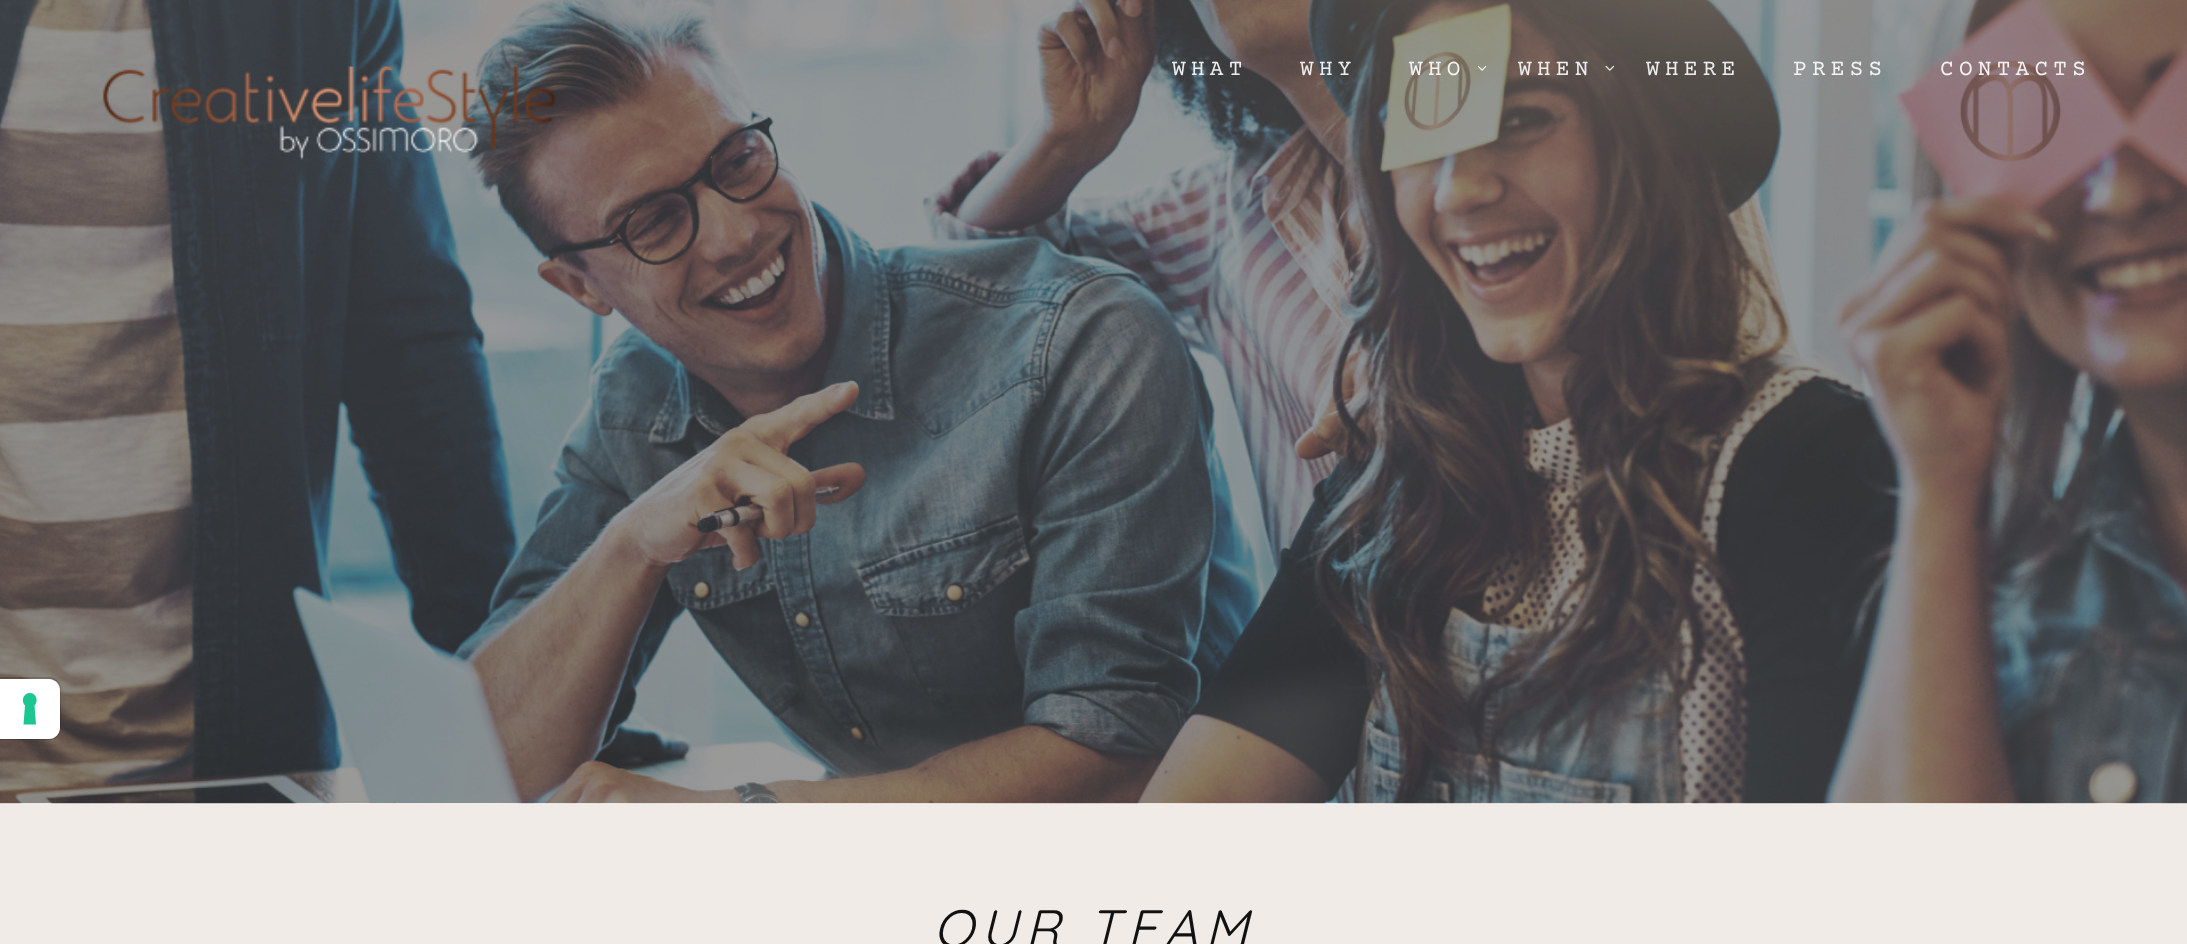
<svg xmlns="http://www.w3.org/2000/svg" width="2187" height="944">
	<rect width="100%" height="100%" fill="#F0EBE7" />
	<image x="0" y="0" width="2187" height="804" href="assets/img1.png" />
	<path d="M-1 678H49C55 678 60 683 60 689V728C60 734 55 739 49 739H-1Z" fill="none" stroke="#000000" stroke-opacity="0.15" stroke-width="2" />
	<path d="M0 679H49C55 679 60 684 60 690V728C60 734 55 739 49 739H0Z" fill="#FFFFFF" />
	<path d="M30 693C36 693 39 701 34.5 705.5L36 724.5H23.5L25 705.5C20.5 701 23.5 693 30 693Z" fill="#1CC691" fill-rule="evenodd" />
	<image x="102" y="66" width="454" height="94" href="assets/img2.png" />
	<g font-family="Courier Prime" font-size="22.75" letter-spacing="5.25" fill="#ECEDED">
		<text x="1172" y="75">WHAT</text>
		<text x="1300" y="75">WHY</text>
	</g>
	<text x="1409" y="75" font-family="Courier Prime" font-size="22.75" letter-spacing="5.25" fill="#F3F3F2">WHO</text>
	<image x="1477" y="65" width="10" height="6" href="assets/img3.png" />
	<text x="1518" y="75" font-family="Courier Prime" font-size="22.75" letter-spacing="5.25" fill="#ECEDED">WHEN</text>
	<image x="1605" y="65" width="10" height="6" href="assets/img4.png" />
	<text x="1646" y="75" font-family="Courier Prime" font-size="22.75" letter-spacing="5.25" fill="#ECEDED">WHERE</text>
	<g font-family="Courier Prime" font-size="22.75" letter-spacing="5.25" fill="#F3F3F2">
		<text x="1793" y="75">PRESS</text>
		<text x="1940" y="75">CONTACTS</text>
	</g>
	<text x="933" y="947" font-family="Quicksand" font-size="52.5" font-weight="300" font-style="italic" letter-spacing="7" fill="#111111">OUR TEAM</text>
</svg>
